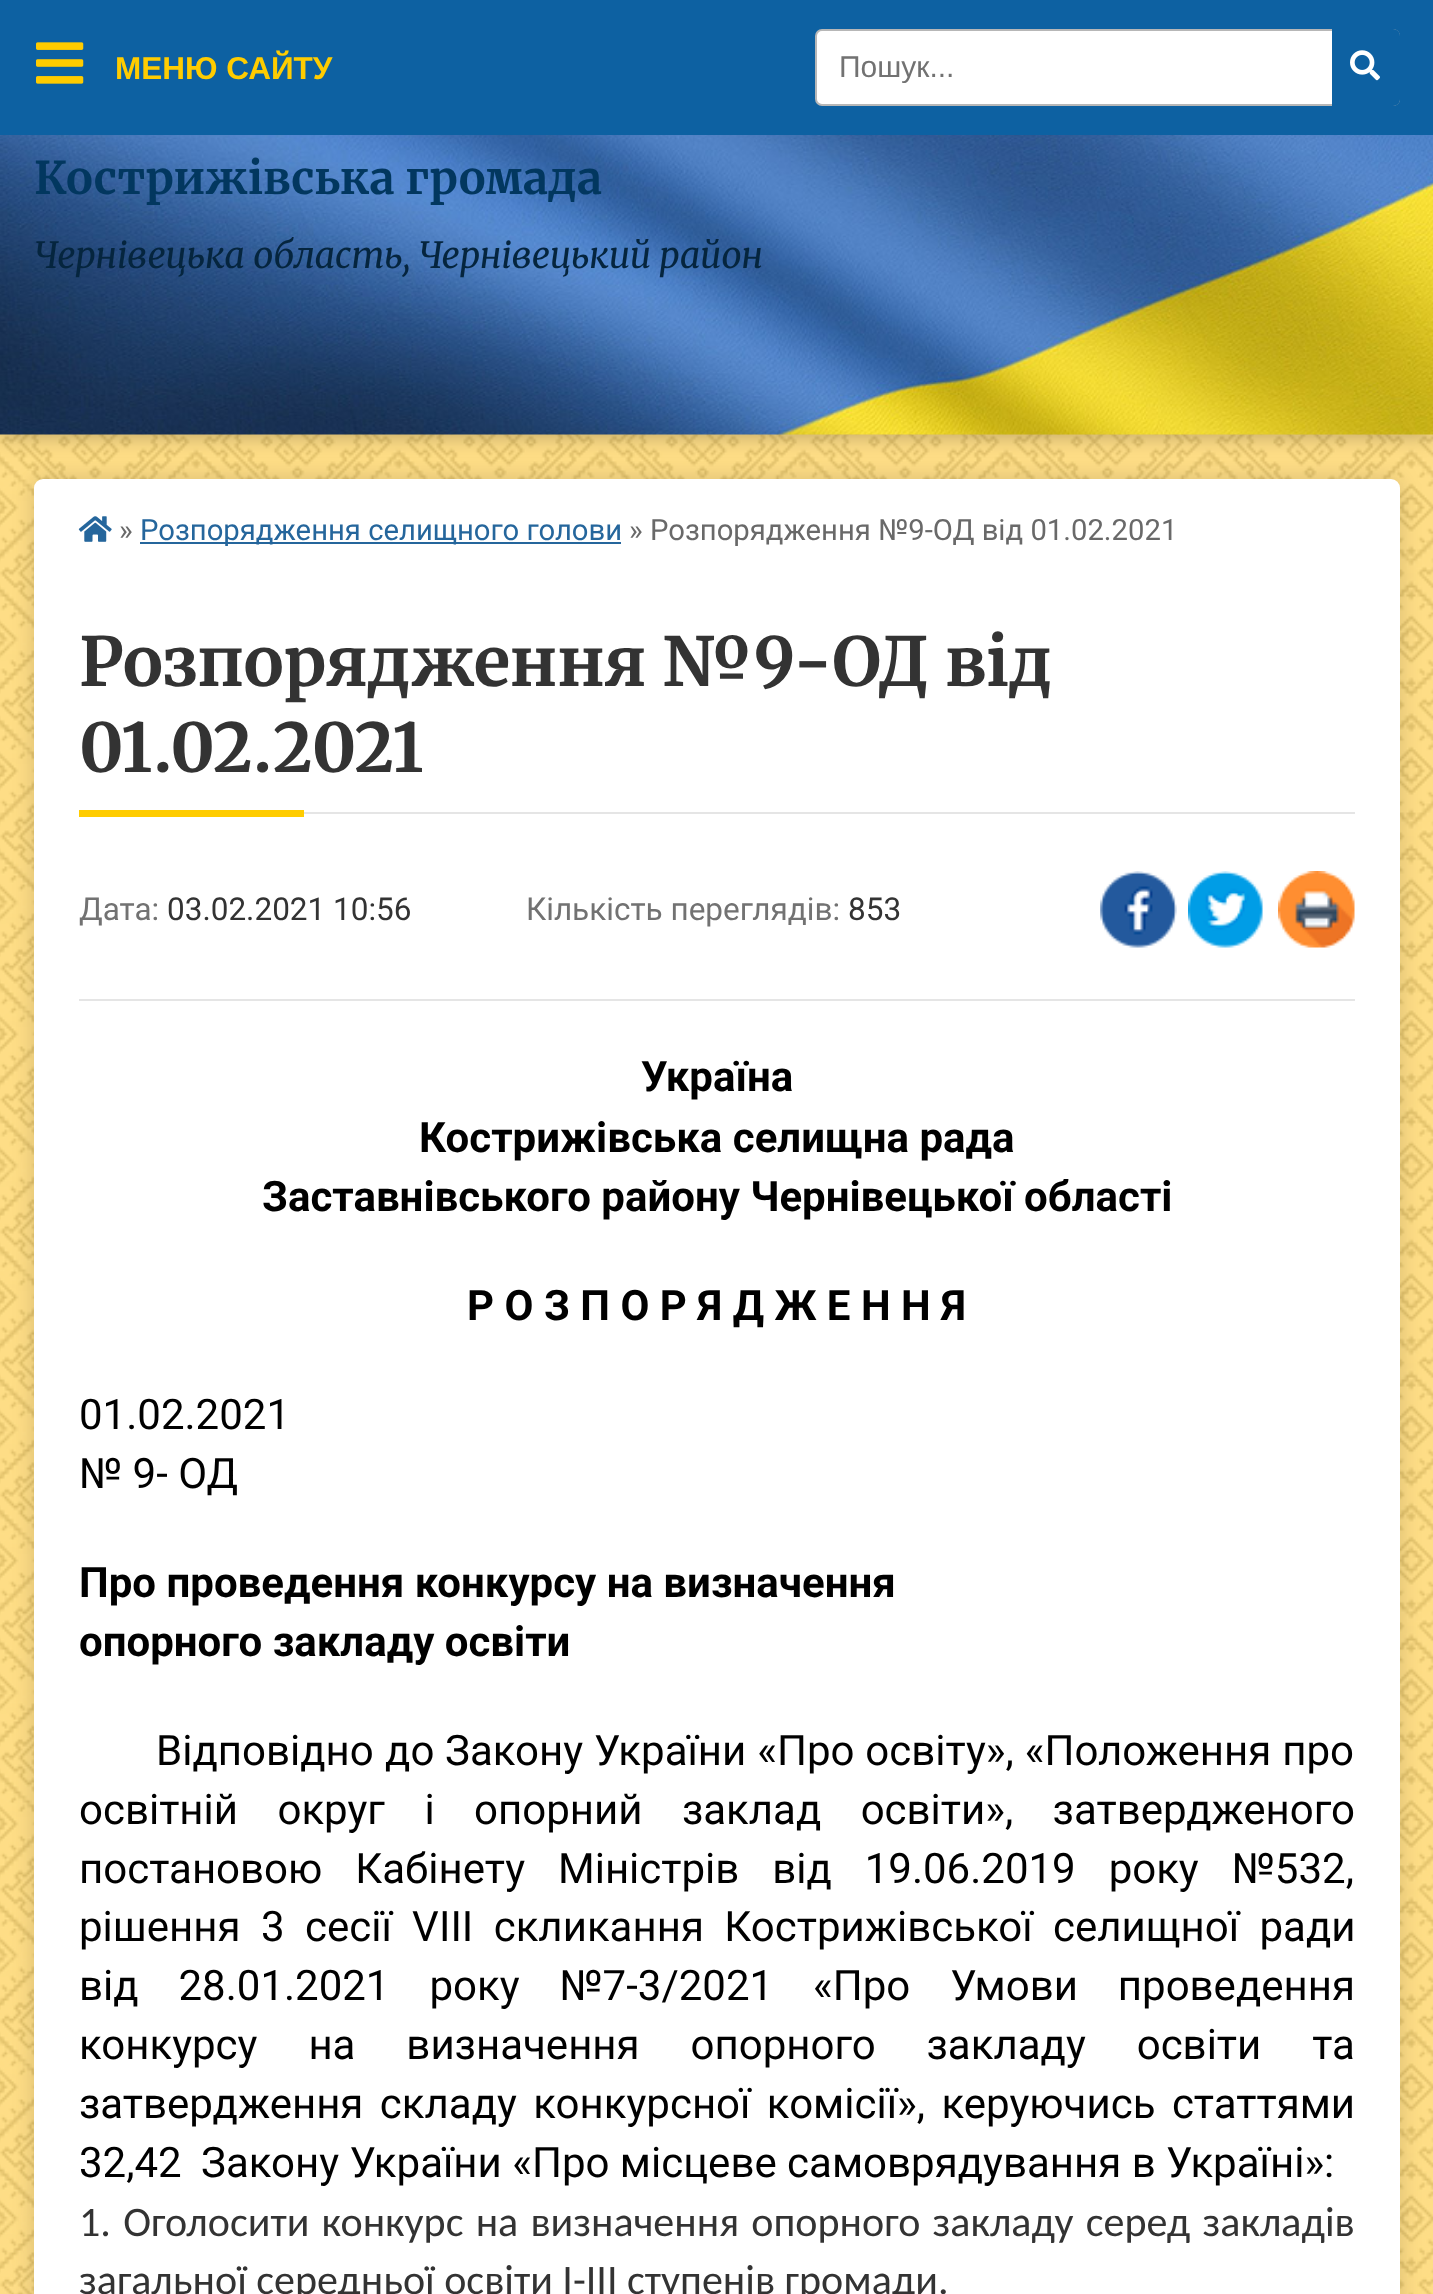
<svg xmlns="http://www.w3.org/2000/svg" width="1433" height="2294">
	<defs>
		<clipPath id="clip1"><rect x="839" y="50" width="468" height="33" /></clipPath>
	</defs>
	<rect width="100%" height="100%" fill="#FFDA75" />
	<image x="0" y="434" width="1433" height="1860" href="assets/img1.png" />
	<rect x="34" y="479" width="1366" height="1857" rx="9" fill="#000000" fill-opacity="0.15" filter="blur(11px)" />
	<rect x="34" y="479" width="1366" height="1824" rx="9" fill="#FFFFFF" />
	<rect x="0" y="52" width="1433" height="382" fill="#000000" fill-opacity="0.3" filter="blur(11px)" />
	<rect x="0" y="0" width="1433" height="135" fill="#0D61A2" />
	<image x="36" y="42" width="48" height="42" href="assets/img2.png" />
	<text x="115" y="79" font-family="Liberation Sans" font-size="31.5" font-weight="700" fill="#FFCC00">МЕНЮ САЙТУ</text>
	<image x="78" y="516" width="34" height="26" href="assets/img3.png" />
	<text x="119" y="540" font-family="Roboto" font-size="29.25" fill="#696969">»</text>
	<rect x="140" y="542" width="481" height="2" fill="#25669C" />
	<text x="140" y="540" font-family="Roboto" font-size="29.25" fill="#25669C">Розпорядження селищного голови</text>
	<text x="629" y="540" font-family="Roboto" font-size="29.25" fill="#696969">» Розпорядження №9-ОД від 01.02.2021</text>
	<rect x="304" y="812" width="1051" height="2" fill="#E5E5E5" />
	<g font-family="Merriweather" font-size="67.5" font-weight="300" fill="#333333">
		<text x="79" y="686">Розпорядження №9-ОД від</text>
		<text x="79" y="772">01.02.2021</text>
	</g>
	<rect x="79" y="810" width="225" height="7" fill="#FFCC00" />
	<text x="79" y="920" font-family="Roboto" font-size="31.5" fill="#727272">Дата:</text>
	<text x="167" y="920" font-family="Roboto" font-size="31.5" fill="#333333">03.02.2021 10:56</text>
	<text x="526" y="920" font-family="Roboto" font-size="31.5" fill="#727272">Кількість переглядів:</text>
	<text x="848" y="920" font-family="Roboto" font-size="31.5" fill="#333333">853</text>
	<image x="1100" y="871" width="77" height="77" href="assets/img4.png" />
	<image x="1188" y="871" width="75" height="77" href="assets/img5.png" />
	<image x="1278" y="871" width="77" height="77" href="assets/img6.png" />
	<rect x="79" y="999" width="1276" height="2" fill="#E5E5E5" />
	<g font-family="Roboto" font-size="42" font-weight="700" fill="#000000">
		<text x="641" y="1091">Україна</text>
		<text x="419" y="1152">Кострижівська селищна рада</text>
		<text x="262" y="1211">Заставнівського району Чернівецької області</text>
		<text x="467" y="1320">Р О З П О Р Я Д Ж Е Н Н Я</text>
	</g>
	<g font-family="Roboto" font-size="42" fill="#000000">
		<text x="79" y="1429">01.02.2021</text>
		<text x="79" y="1488">№ 9- ОД</text>
	</g>
	<g font-family="Roboto" font-size="42" font-weight="700" fill="#000000">
		<text x="79" y="1597">Про проведення конкурсу на визначення</text>
		<text x="79" y="1656">опорного закладу освіти</text>
	</g>
	<g font-family="Roboto" font-size="42" fill="#000000">
		<text x="156" y="1765" word-spacing="1">Відповідно до</text>
		<text x="445" y="1765" word-spacing="0.5">Закону України «Про освіту», «Положення про</text>
		<text x="79" y="1824" word-spacing="29">освітній округ і опорний заклад освіти», затвердженого</text>
		<text x="79" y="1883" word-spacing="22.5">постановою Кабінету Міністрів від 19.06.2019 року №532,</text>
		<text x="79" y="1941" word-spacing="10">рішення 3 сесії</text>
		<text x="412" y="1941">V</text>
		<text x="439" y="1941" word-spacing="10">ІІІ скликання Кострижівської селищної ради</text>
		<text x="79" y="2000" word-spacing="29.5">від 28.01.2021 року №7-3/2021 «Про Умови проведення</text>
		<text x="79" y="2059" word-spacing="40.5">конкурсу на визначення опорного закладу освіти та</text>
		<text x="79" y="2118" word-spacing="6">затвердження складу конкурсної комісії», керуючись статтями</text>
		<text x="79" y="2177">32,42</text>
		<text x="201" y="2177">Закону України «Про місцеве самоврядування в Україні»:</text>
	</g>
	<g font-family="Carlito" font-size="42" fill="#333333">
		<text x="79" y="2236" word-spacing="2.75">1. Оголосити конкурс на визначення опорного закладу серед закладів</text>
		<text x="79" y="2294">загальної середньої освіти І-ІІІ ступенів громади.</text>
	</g>
	<rect x="816" y="30" width="583" height="75" rx="6" fill="#FFFFFF" stroke="#B7B7B7" stroke-width="2" />
	<g clip-path="url(#clip1)">
		<text x="839" y="77" font-family="Liberation Sans" font-size="30" fill="#727272">Пошук...</text>
	</g>
	<path d="M1332 29H1393C1397 29 1400 32 1400 36V99C1400 103 1397 106 1393 106H1332Z" fill="#0D61A2" />
	<image x="1350" y="50" width="30" height="31" href="assets/img7.png" />
	<image x="0" y="135" width="1433" height="300" href="assets/img8.png" />
	<text x="34" y="194" font-family="Merriweather" font-size="45" font-weight="300" fill="#02375F">Кострижівська громада</text>
	<text x="34" y="268" font-family="Merriweather" font-size="36" font-weight="300" font-style="italic" fill="#05253E">Чернівецька область, Чернівецький район</text>
</svg>
